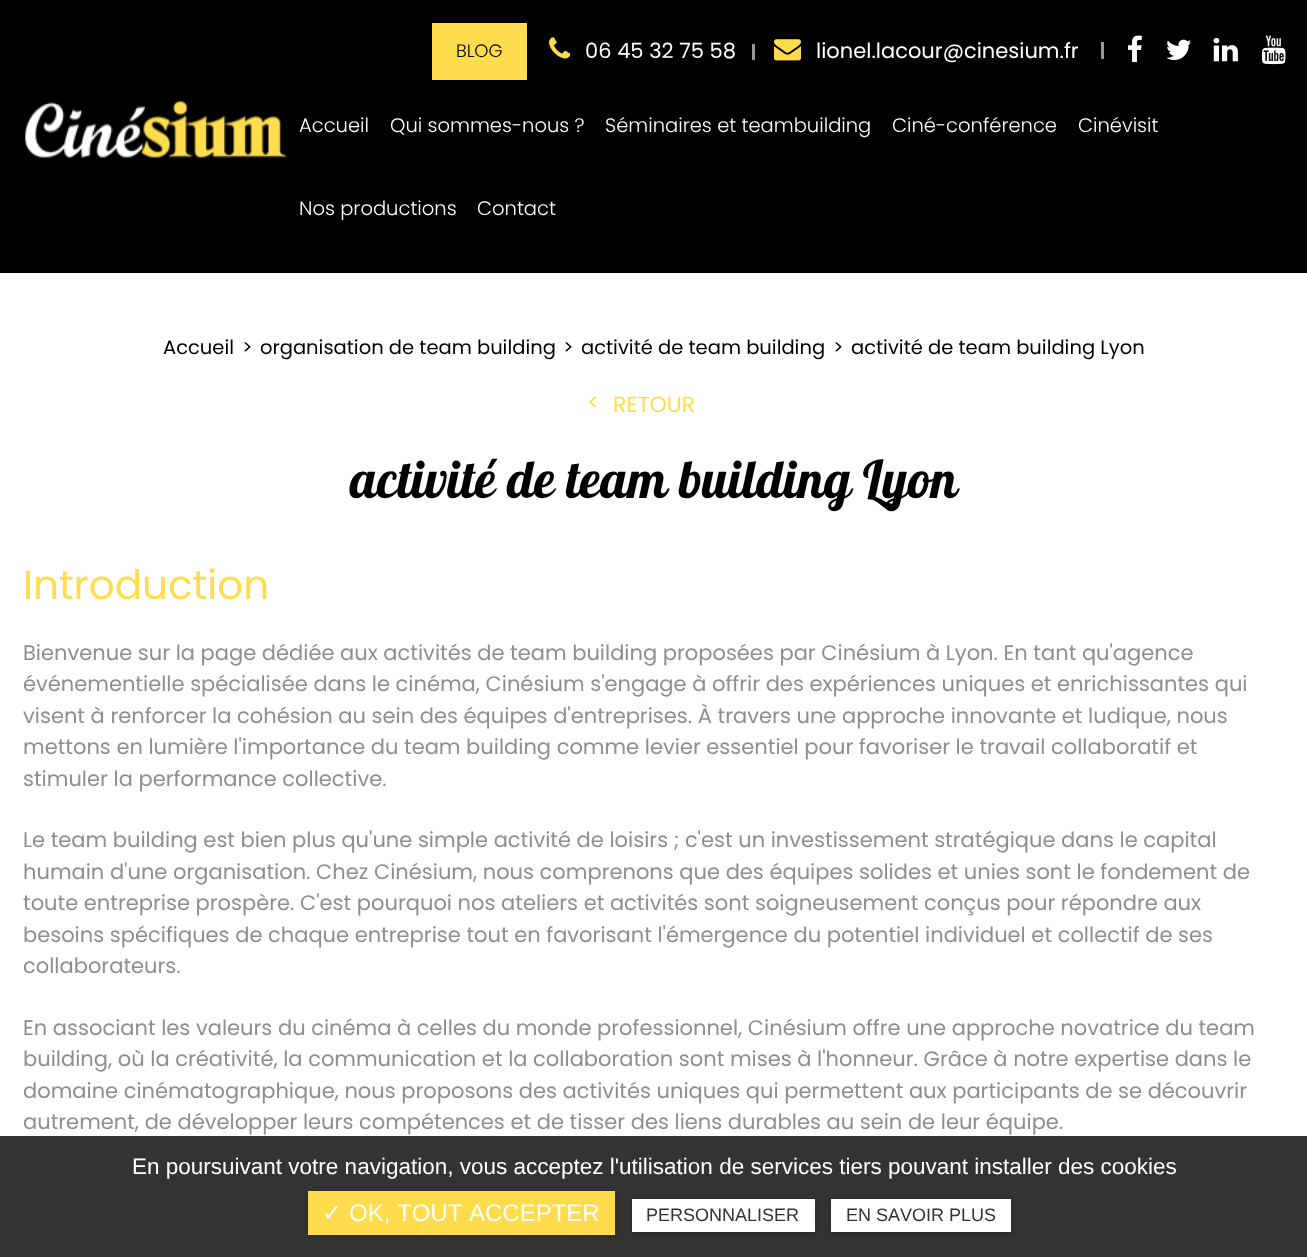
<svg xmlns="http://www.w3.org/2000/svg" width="1307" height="1257">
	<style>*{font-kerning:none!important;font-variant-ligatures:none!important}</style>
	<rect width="100%" height="100%" fill="#FFFFFF" />
	<rect x="0" y="0" width="1307" height="273" fill="#000000" />
	<image x="25" y="101" width="262" height="57" href="assets/img1.png" />
	<rect x="432" y="23" width="95" height="57" fill="#FFDC4C" />
	<text x="456" y="57" font-family="Poppins" font-size="18" font-weight="300" fill="#000000">BLOG</text>
	<image x="549" y="37" width="22" height="22" href="assets/img2.png" />
	<text x="585" y="58" font-family="Poppins" font-size="21" fill="#FFFFFF">06 45 32 75 58</text>
	<rect x="752" y="44" width="3" height="16" fill="#999999" />
	<image x="774" y="39" width="27" height="22" href="assets/img3.png" />
	<text x="816" y="58" font-family="Poppins" font-size="21" fill="#FFFFFF">lionel.lacour@cinesium.fr</text>
	<rect x="1101" y="42" width="3" height="17" fill="#999999" />
	<image x="1128" y="35" width="14" height="28" href="assets/img4.png" />
	<image x="1166" y="39" width="26" height="21" href="assets/img5.png" />
	<image x="1213" y="37" width="25" height="25" href="assets/img6.png" />
	<image x="1261" y="35" width="25" height="30" href="assets/img7.png" />
	<g font-family="Poppins" font-size="19.5" font-weight="300" fill="#FFFFFF">
		<text x="299" y="132">Accueil</text>
		<text x="390" y="132">Qui sommes-nous ?</text>
		<text x="605" y="132">Séminaires et teambuilding</text>
		<text x="892" y="132">Ciné-conférence</text>
		<text x="1078" y="132">Cinévisit</text>
		<text x="299" y="215">Nos productions</text>
		<text x="477" y="215">Contact</text>
	</g>
	<g font-family="Poppins" font-size="19.5" fill="#000000">
		<text x="163" y="354">Accueil</text>
		<text x="242" y="354">&gt;</text>
		<text x="260" y="354">organisation de team building</text>
		<text x="563" y="354">&gt;</text>
		<text x="581" y="354">activité de team building</text>
		<text x="833" y="354">&gt;</text>
		<text x="851" y="354">activité de team building Lyon</text>
	</g>
	<g font-family="Poppins" font-size="22" fill="#FFDC4C">
		<text x="587" y="410">&lt;</text>
		<text x="613" y="412">RETOUR</text>
	</g>
	<text x="350" y="498" font-family="Lobster" font-size="52.5" fill="#000000">activité de team building Lyon</text>
	<text x="23" y="599" font-family="Poppins" font-size="40.5" fill="#FFDC4C">Introduction</text>
	<g font-family="Poppins" font-size="21" fill="#8E8E8E">
		<text x="23" y="660">Bienvenue sur la page dédiée aux activités de team building proposées par Cinésium à Lyon. En tant qu'agence</text>
		<text x="23" y="691">événementielle spécialisée dans le cinéma, Cinésium s'engage à offrir des expériences uniques et enrichissantes qui</text>
		<text x="23" y="723">visent à renforcer la cohésion au sein des équipes d'entreprises. À travers une approche innovante et ludique, nous</text>
		<text x="23" y="754">mettons en lumière l'importance du team building comme levier essentiel pour favoriser le travail collaboratif et</text>
		<text x="23" y="786">stimuler la performance collective.</text>
		<text x="23" y="847">Le team building est bien plus qu'une simple activité de loisirs ; c'est un investissement stratégique dans le capital</text>
		<text x="23" y="879">humain d'une organisation. Chez Cinésium, nous comprenons que des équipes solides et unies sont le fondement de</text>
		<text x="23" y="910">toute entreprise prospère. C'est pourquoi nos ateliers et activités sont soigneusement conçus pour répondre aux</text>
		<text x="23" y="942">besoins spécifiques de chaque entreprise tout en favorisant l'émergence du potentiel individuel et collectif de ses</text>
		<text x="23" y="973">collaborateurs.</text>
		<text x="23" y="1035">En associant les valeurs du cinéma à celles du monde professionnel, Cinésium offre une approche novatrice du team</text>
		<text x="23" y="1066">building, où la créativité, la communication et la collaboration sont mises à l'honneur. Grâce à notre expertise dans le</text>
		<text x="23" y="1098">domaine cinématographique, nous proposons des activités uniques qui permettent aux participants de se découvrir</text>
		<text x="23" y="1129">autrement, de développer leurs compétences et de tisser des liens durables au sein de leur équipe.</text>
	</g>
	<rect x="0" y="1136" width="1307" height="121" fill="#333333" />
	<text x="132" y="1174" font-family="Liberation Sans" font-size="22.5" fill="#FFFFFF">En poursuivant votre navigation, vous acceptez l'utilisation de services tiers pouvant installer des cookies</text>
	<rect x="308" y="1193" width="307" height="43" fill="#000000" fill-opacity="0.3" filter="blur(2px)" />
	<rect x="308" y="1191" width="307" height="44" fill="#FFDC4C" />
	<text x="322" y="1221" font-family="DejaVu Sans" font-size="24" fill="#FFFFFF">✓</text>
	<text x="349" y="1221" font-family="Liberation Sans" font-size="24" fill="#FFFFFF">OK, TOUT ACCEPTER</text>
	<rect x="632" y="1200" width="183" height="33" fill="#000000" fill-opacity="0.3" filter="blur(2px)" />
	<rect x="632" y="1199" width="183" height="33" fill="#FFFFFF" />
	<text x="646" y="1221" font-family="Liberation Sans" font-size="18" fill="#333333">PERSONNALISER</text>
	<rect x="831" y="1200" width="180" height="33" fill="#000000" fill-opacity="0.3" filter="blur(2px)" />
	<rect x="831" y="1199" width="180" height="33" fill="#FFFFFF" />
	<text x="846" y="1221" font-family="Liberation Sans" font-size="18" fill="#333333">EN SAVOIR PLUS</text>
</svg>
